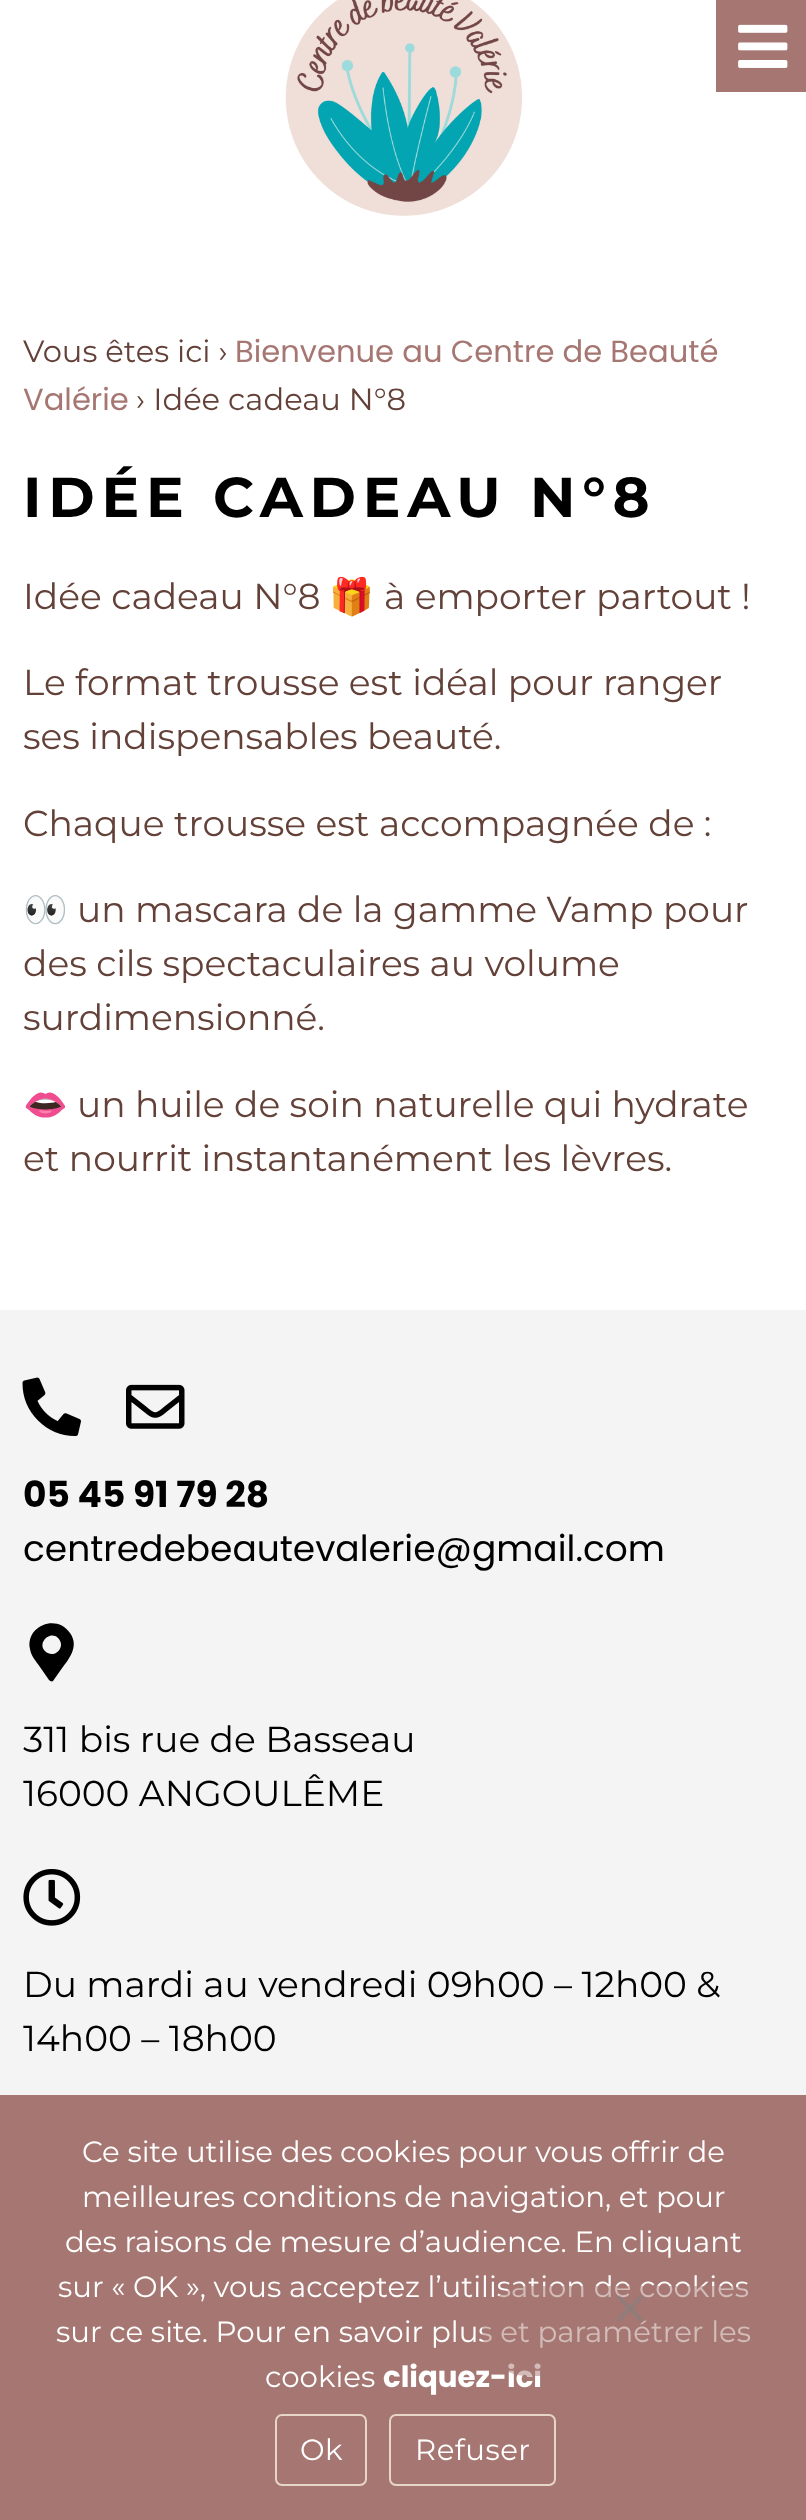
<svg xmlns="http://www.w3.org/2000/svg" width="806" height="2520">
	<rect width="100%" height="100%" fill="#FFFFFF" />
	<image x="285" y="0" width="237" height="216" href="assets/img1.png" />
	<rect x="716" y="0" width="90" height="92" fill="#A67772" />
	<image x="738" y="24" width="50" height="44" href="assets/img2.png" />
	<text x="23" y="362" font-family="Montserrat" font-size="30.6" fill="#634138">Vous êtes ici ›</text>
	<g font-family="Poppins" font-size="30.6" fill="#A67772">
		<text x="235" y="362">Bienvenue au Centre de Beauté</text>
		<text x="23" y="410">Valérie</text>
	</g>
	<text x="136" y="410" font-family="Montserrat" font-size="30.6" fill="#634138">› Idée cadeau N°8</text>
	<text x="23" y="517" font-family="Montserrat" font-size="56.25" font-weight="700" letter-spacing="6.75" fill="#000000">IDÉE CADEAU N°8</text>
	<text x="23" y="609" font-family="Montserrat" font-size="36" fill="#634138">Idée cadeau N°8</text>
	<text x="329" y="609" font-family="Noto Color Emoji" font-size="36" fill="#634138">🎁</text>
	<g font-family="Montserrat" font-size="36" fill="#634138">
		<text x="384" y="609">à emporter partout !</text>
		<text x="23" y="695">Le format trousse est idéal pour ranger</text>
		<text x="23" y="749">ses indispensables beauté.</text>
		<text x="23" y="836">Chaque trousse est accompagnée de :</text>
	</g>
	<text x="23" y="922" font-family="Noto Color Emoji" font-size="36" fill="#634138">👀</text>
	<g font-family="Montserrat" font-size="36" fill="#634138">
		<text x="77" y="922">un mascara de la gamme Vamp pour</text>
		<text x="23" y="976">des cils spectaculaires au volume</text>
		<text x="23" y="1030">surdimensionné.</text>
	</g>
	<text x="23" y="1117" font-family="Noto Color Emoji" font-size="36" fill="#634138">👄</text>
	<g font-family="Montserrat" font-size="36" fill="#634138">
		<text x="77" y="1117">un huile de soin naturelle qui hydrate</text>
		<text x="23" y="1171">et nourrit instantanément les lèvres.</text>
	</g>
	<rect x="0" y="1310" width="806" height="785" fill="#F4F4F4" />
	<image x="22" y="1377" width="59" height="60" href="assets/img3.png" />
	<image x="126" y="1384" width="59" height="45" href="assets/img4.png" />
	<text x="23" y="1507" font-family="Poppins" font-size="36" font-weight="700" fill="#000000">05 45 91 79 28</text>
	<text x="23" y="1561" font-family="Poppins" font-size="36" fill="#000000">centredebeautevalerie@gmail.com</text>
	<path d="M49 1680L40 1667C36 1661 31 1656 30 1649C25 1626 57 1613 70 1633C80 1647 68 1660 60 1671L53 1681C52 1682 50 1681 49 1680ZM45 1651C54 1660 67 1647 58 1638C50 1630 37 1643 45 1651Z" fill="#000000" />
	<g font-family="Montserrat" font-size="36" fill="#000000">
		<text x="23" y="1752">311 bis rue de Basseau</text>
		<text x="23" y="1806">16000 ANGOULÊME</text>
	</g>
	<image x="23" y="1869" width="58" height="57" href="assets/img5.png" />
	<g font-family="Montserrat" font-size="36" fill="#000000">
		<text x="23" y="1997">Du mardi au vendredi 09h00 – 12h00 &amp;</text>
		<text x="23" y="2051">14h00 – 18h00</text>
	</g>
	<rect x="0" y="2095" width="806" height="425" fill="#A67772" />
	<g font-family="Montserrat" font-size="29.25" fill="#FFFFFF">
		<text x="82" y="2162">Ce site utilise des cookies pour vous offrir de</text>
		<text x="82" y="2207">meilleures conditions de navigation, et pour</text>
		<text x="65" y="2252">des raisons de mesure d’audience. En cliquant</text>
		<text x="58" y="2297">sur « OK », vous acceptez l’utilisation de cookies</text>
		<text x="56" y="2342">sur ce site. Pour en savoir plus et paramétrer les</text>
		<text x="265" y="2387">cookies</text>
	</g>
	<text x="383" y="2387" font-family="Poppins" font-size="29.25" font-weight="700" fill="#FFFFFF">cliquez-ici</text>
	<rect x="482" y="2286" width="292" height="90" rx="45" fill="#A67772" fill-opacity="0.5" />
	<path d="M640.5 2295L643.5 2298L619.5 2322L616.5 2319Z" fill="#937C79" />
	<path d="M616.5 2298L619.5 2295L643.5 2319L640.5 2322Z" fill="#808080" fill-opacity="0.5" />
	<rect x="276" y="2415" width="90" height="70" rx="6" fill="none" stroke="#E7D5C7" stroke-width="2" />
	<text x="300" y="2460" font-family="Montserrat" font-size="29.25" letter-spacing="0.5" fill="#FFFFFF">Ok</text>
	<rect x="390" y="2415" width="165" height="70" rx="6" fill="none" stroke="#E7D5C7" stroke-width="2" />
	<text x="415" y="2460" font-family="Montserrat" font-size="29.25" letter-spacing="0.5" fill="#FFFFFF">Refuser</text>
</svg>
